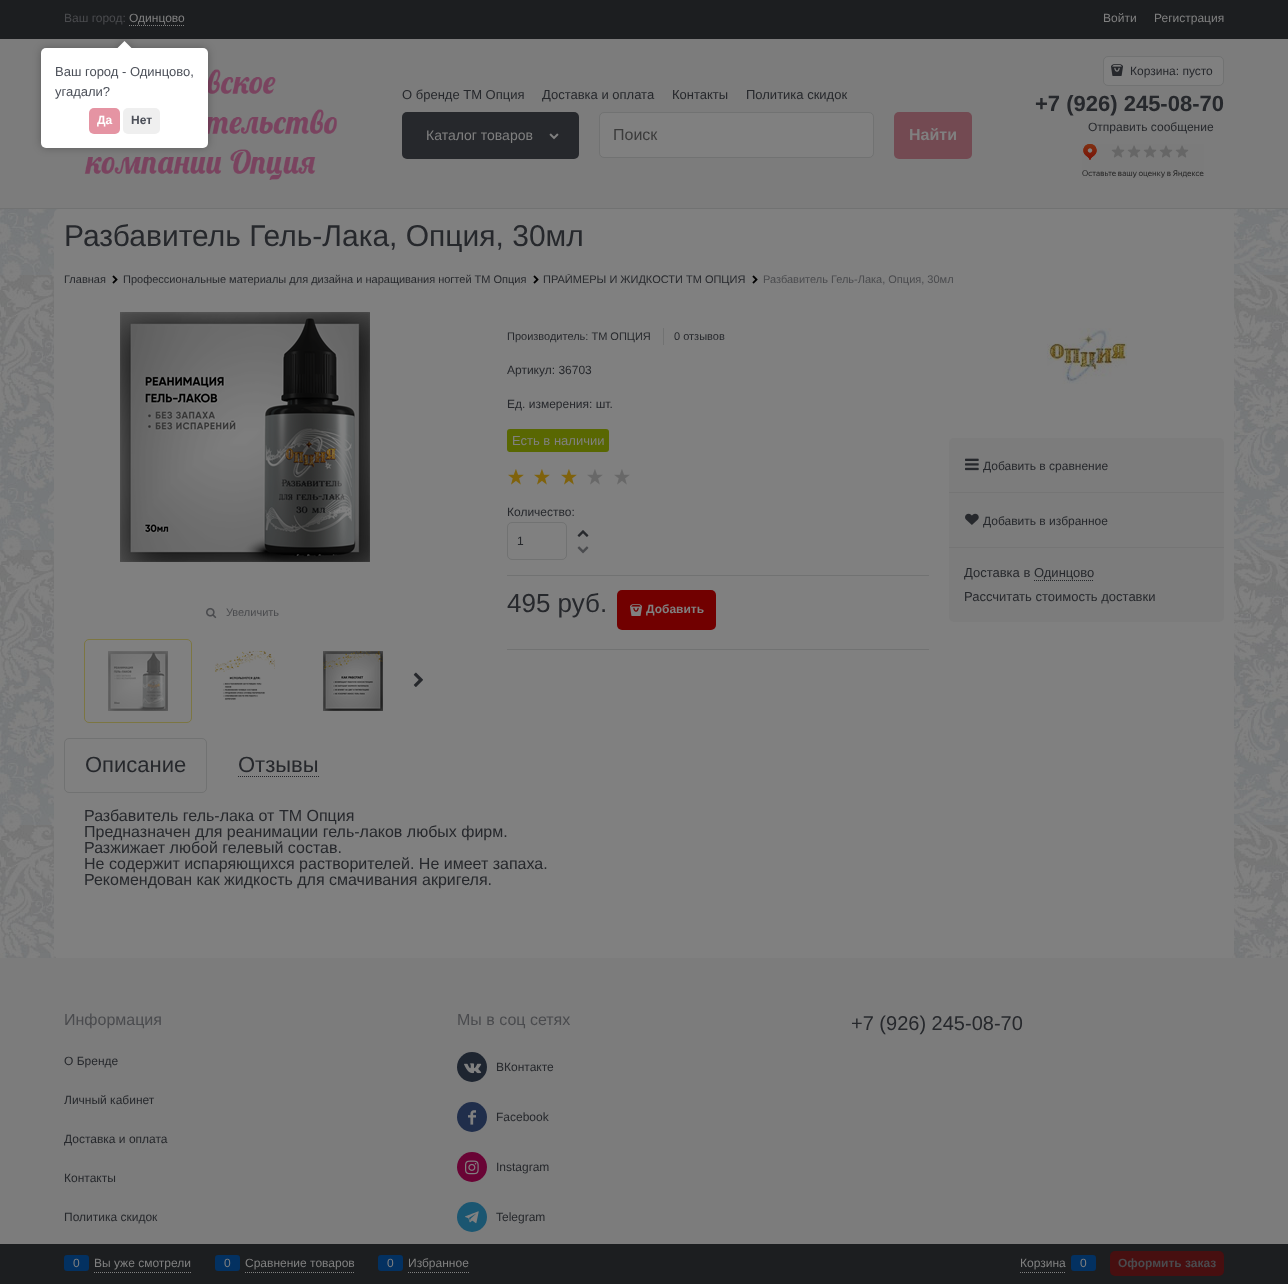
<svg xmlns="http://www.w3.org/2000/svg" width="1288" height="1284">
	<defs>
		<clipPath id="clip1"><rect x="64" y="274" width="1160" height="18" /></clipPath>
		<clipPath id="clip2"><rect x="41" y="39" width="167" height="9" /></clipPath>
		<clipPath id="clip3"><rect x="41" y="39" width="167" height="9" /></clipPath>
	</defs>
	<rect width="100%" height="100%" fill="#FFFFFF" />
	<image x="0" y="209" width="1288" height="749" href="assets/img1.png" />
	<rect x="0" y="0" width="1288" height="39" fill="#1C1E20" />
	<text x="64" y="22" font-family="Liberation Sans" font-size="12" fill="#4A4B4E">Ваш город:</text>
	<text x="129" y="22" font-family="Liberation Sans" font-size="12" fill="#808080">Одинцово</text>
	<path d="M129 25.5H185" fill="none" stroke="#808080" stroke-dasharray="1 1" />
	<g font-family="Liberation Sans" font-size="12" fill="#808080">
		<text x="1103" y="22">Войти</text>
		<text x="1154" y="22">Регистрация</text>
	</g>
	<rect x="0" y="39" width="1288" height="169" fill="#7C7C7C" />
	<rect x="0" y="208" width="1288" height="1" fill="#717272" />
	<image x="84" y="69" width="253" height="111" href="assets/img2.png" />
	<g font-family="Liberation Sans" font-size="13" fill="#26282C">
		<text x="402" y="99">О бренде ТМ Опция</text>
		<text x="542" y="99">Доставка и оплата</text>
		<text x="672" y="99">Контакты</text>
		<text x="746" y="99">Политика скидок</text>
	</g>
	<rect x="402" y="112" width="177" height="47" rx="5" fill="#26282C" />
	<text x="426" y="140" font-family="Liberation Sans" font-size="14" fill="#808080">Каталог товаров</text>
	<image x="549" y="133" width="10" height="7" href="assets/img3.png" />
	<rect x="599.5" y="112.5" width="274" height="45" rx="4.5" fill="#808080" stroke="#717272" />
	<text x="613" y="140" font-family="Liberation Sans" font-size="16" fill="#3B3B3B">Поиск</text>
	<rect x="894" y="112" width="78" height="47" rx="5" fill="#734A52" />
	<text x="909" y="140" font-family="Liberation Sans" font-size="16" font-weight="700" fill="#808080">Найти</text>
	<rect x="1103.5" y="56.5" width="120" height="29" rx="4.5" fill="#808080" stroke="#717272" />
	<image x="1111" y="64" width="12" height="12" href="assets/img4.png" />
	<text x="1130" y="75" font-family="Liberation Sans" font-size="12" fill="#26282C">Корзина: пусто</text>
	<text x="1035" y="111" font-family="Liberation Sans" font-size="22" font-weight="700" fill="#26282C">+7 (926) 245-08-70</text>
	<text x="1088" y="131" font-family="Liberation Sans" font-size="12" fill="#26282C">Отправить сообщение</text>
	<image x="1082" y="144" width="122" height="34" href="assets/img5.png" />
	<rect x="54" y="209" width="1180" height="749" rx="5" fill="#808080" />
	<text x="64" y="246" font-family="Liberation Sans" font-size="30" fill="#26282C">Разбавитель Гель-Лака, Опция, 30мл</text>
	<text x="64" y="283" font-family="Liberation Sans" font-size="11" fill="#26282C">Главная</text>
	<image x="112" y="275" width="6" height="9" href="assets/img6.png" />
	<text x="123" y="283" font-family="Liberation Sans" font-size="11" fill="#26282C">Профессиональные материалы для дизайна и наращивания ногтей ТМ Опция</text>
	<image x="533" y="275" width="6" height="9" href="assets/img6.png" />
	<g clip-path="url(#clip1)">
		<text x="543" y="283" font-family="Liberation Sans" font-size="11" fill="#26282C">ПРАЙМЕРЫ И ЖИДКОСТИ ТМ ОПЦИЯ</text>
	</g>
	<image x="752" y="275" width="6" height="9" href="assets/img6.png" />
	<text x="763" y="283" font-family="Liberation Sans" font-size="11" fill="#4A4B4E">Разбавитель Гель-Лака, Опция, 30мл</text>
	<image x="120" y="312" width="250" height="250" href="assets/img7.png" />
	<image x="206" y="607" width="11" height="12" href="assets/img8.png" />
	<text x="226" y="616" font-family="Liberation Sans" font-size="11" fill="#4A4B4E">Увеличить</text>
	<rect x="84.5" y="639.5" width="107" height="83" rx="4.5" fill="none" stroke="#7C7642" />
	<image x="108" y="651" width="60" height="60" href="assets/img9.png" />
	<image x="215" y="651" width="60" height="49" href="assets/img10.png" />
	<image x="323" y="651" width="60" height="60" href="assets/img11.png" />
	<image x="413" y="672" width="10" height="15" href="assets/img12.png" />
	<text x="507" y="340" font-family="Liberation Sans" font-size="11" fill="#26282C">Производитель: ТМ ОПЦИЯ</text>
	<rect x="663" y="328" width="1" height="17" fill="#717272" />
	<text x="674" y="340" font-family="Liberation Sans" font-size="11" fill="#26282C">0 отзывов</text>
	<g font-family="Liberation Sans" font-size="12" fill="#26282C">
		<text x="507" y="374">Артикул: 36703</text>
		<text x="507" y="408">Ед. измерения: шт.</text>
	</g>
	<rect x="507" y="429" width="102" height="23" rx="3" fill="#596702" />
	<text x="512" y="445" font-family="Liberation Sans" font-size="13" fill="#808080">Есть в наличии</text>
	<image x="508" y="469" width="16" height="16" href="assets/img13.png" />
	<image x="534" y="469" width="16" height="16" href="assets/img13.png" />
	<image x="561" y="469" width="16" height="16" href="assets/img13.png" />
	<image x="587" y="469" width="16" height="16" href="assets/img14.png" />
	<image x="614" y="469" width="16" height="16" href="assets/img14.png" />
	<text x="507" y="516" font-family="Liberation Sans" font-size="12" fill="#26282C">Количество:</text>
	<rect x="507.5" y="522.5" width="59" height="37" rx="4.5" fill="none" stroke="#717272" />
	<text x="517" y="545" font-family="Liberation Sans" font-size="12" fill="#26282C">1</text>
	<image x="577" y="530" width="12" height="7" href="assets/img15.png" />
	<image x="577" y="546" width="12" height="8" href="assets/img16.png" />
	<rect x="507" y="575" width="422" height="1" fill="#717272" />
	<rect x="507" y="649" width="422" height="1" fill="#717272" />
	<text x="507" y="612" font-family="Liberation Sans" font-size="26" fill="#26282C">495 руб.</text>
	<rect x="617" y="590" width="99" height="40" rx="5" fill="#710000" />
	<image x="630" y="604" width="12" height="12" href="assets/img17.png" />
	<text x="646" y="613" font-family="Liberation Sans" font-size="12" font-weight="700" fill="#808080">Добавить</text>
	<rect x="64.5" y="738.5" width="142" height="54" rx="4.5" fill="none" stroke="#717272" />
	<text x="85" y="772" font-family="Liberation Sans" font-size="22" fill="#26282C">Описание</text>
	<path d="M238 776.5H319" fill="none" stroke="#26282C" stroke-dasharray="1 1" />
	<text x="238" y="772" font-family="Liberation Sans" font-size="22" fill="#26282C">Отзывы</text>
	<g font-family="Liberation Sans" font-size="16" fill="#26282C">
		<text x="84" y="821">Разбавитель гель-лака от ТМ Опция</text>
		<text x="84" y="837">Предназначен для реанимации гель-лаков любых фирм.</text>
		<text x="84" y="853">Разжижает любой гелевый состав.</text>
		<text x="84" y="869">Не содержит испаряющихся растворителей. Не имеет запаха.</text>
		<text x="84" y="885">Рекомендован как жидкость для смачивания акригеля.</text>
	</g>
	<image x="1047" y="328" width="80" height="56" href="assets/img18.png" />
	<rect x="949" y="438" width="275" height="184" rx="5" fill="#7C7C7C" />
	<rect x="949" y="492" width="275" height="1" fill="#757575" />
	<image x="965" y="458" width="14" height="13" href="assets/img19.png" />
	<text x="983" y="470" font-family="Liberation Sans" font-size="12" fill="#26282C">Добавить в сравнение</text>
	<rect x="949" y="547" width="275" height="1" fill="#757575" />
	<image x="965" y="513" width="14" height="12" href="assets/img20.png" />
	<text x="983" y="525" font-family="Liberation Sans" font-size="12" fill="#26282C">Добавить в избранное</text>
	<text x="964" y="577" font-family="Liberation Sans" font-size="13" fill="#26282C">Доставка в Одинцово</text>
	<path d="M1034 580.5H1094" fill="none" stroke="#26282C" stroke-dasharray="1 1" />
	<text x="964" y="601" font-family="Liberation Sans" font-size="13" fill="#26282C">Рассчитать стоимость доставки</text>
	<rect x="0" y="958" width="1288" height="286" fill="#7C7C7C" />
	<text x="64" y="1025" font-family="Liberation Sans" font-size="16" fill="#4A4B4E">Информация</text>
	<g font-family="Liberation Sans" font-size="12" fill="#26282C">
		<text x="64" y="1065">О Бренде</text>
		<text x="64" y="1104">Личный кабинет</text>
		<text x="64" y="1143">Доставка и оплата</text>
		<text x="64" y="1182">Контакты</text>
		<text x="64" y="1221">Политика скидок</text>
	</g>
	<text x="457" y="1025" font-family="Liberation Sans" font-size="16" fill="#4A4B4E">Мы в соц сетях</text>
	<circle cx="472" cy="1067" r="15" fill="#1E2530" />
	<image x="464" y="1063" width="18" height="11" href="assets/img21.png" />
	<text x="496" y="1071" font-family="Liberation Sans" font-size="12" fill="#26282C">ВКонтакте</text>
	<circle cx="472" cy="1117" r="15" fill="#202E4B" />
	<image x="468" y="1110" width="8" height="15" href="assets/img22.png" />
	<text x="496" y="1121" font-family="Liberation Sans" font-size="12" fill="#26282C">Facebook</text>
	<circle cx="472" cy="1167" r="15" fill="#690435" />
	<image x="465" y="1160" width="14" height="15" href="assets/img23.png" />
	<text x="496" y="1171" font-family="Liberation Sans" font-size="12" fill="#26282C">Instagram</text>
	<circle cx="472" cy="1217" r="15" fill="#1B5671" />
	<image x="465" y="1211" width="14" height="13" href="assets/img24.png" />
	<text x="496" y="1221" font-family="Liberation Sans" font-size="12" fill="#26282C">Telegram</text>
	<text x="851" y="1030" font-family="Liberation Sans" font-size="20" fill="#26282C">+7 (926) 245-08-70</text>
	<rect x="0" y="1244" width="1288" height="40" fill="#1C1E20" />
	<path d="M94 1272.5H191" fill="none" stroke="#808080" stroke-dasharray="1 1" />
	<rect x="64" y="1255" width="25" height="16" rx="3" fill="#033161" />
	<g font-family="Liberation Sans" font-size="12" fill="#808080">
		<text x="73" y="1267">0</text>
		<text x="94" y="1267">Вы уже смотрели</text>
	</g>
	<path d="M245 1272.5H354" fill="none" stroke="#808080" stroke-dasharray="1 1" />
	<rect x="215" y="1255" width="25" height="16" rx="3" fill="#033161" />
	<g font-family="Liberation Sans" font-size="12" fill="#808080">
		<text x="224" y="1267">0</text>
		<text x="245" y="1267">Сравнение товаров</text>
	</g>
	<path d="M408 1272.5H469" fill="none" stroke="#808080" stroke-dasharray="1 1" />
	<rect x="378" y="1255" width="25" height="16" rx="3" fill="#033161" />
	<g font-family="Liberation Sans" font-size="12" fill="#808080">
		<text x="387" y="1267">0</text>
		<text x="408" y="1267">Избранное</text>
	</g>
	<path d="M1020 1272.5H1066" fill="none" stroke="#808080" stroke-dasharray="1 1" />
	<text x="1020" y="1267" font-family="Liberation Sans" font-size="12" fill="#808080">Корзина</text>
	<rect x="1071" y="1255" width="25" height="16" rx="3" fill="#033161" />
	<text x="1080" y="1267" font-family="Liberation Sans" font-size="12" fill="#808080">0</text>
	<rect x="1110" y="1251" width="114" height="25" rx="5" fill="#470F10" />
	<text x="1118" y="1267" font-family="Liberation Sans" font-size="12" font-weight="700" fill="#4A4B4E">Оформить заказ</text>
	<rect x="41" y="48" width="167" height="100" rx="5" fill="#000000" fill-opacity="0.25" filter="blur(4.5px)" />
	<rect x="41" y="48" width="167" height="100" rx="5" fill="#FFFFFF" />
	<g clip-path="url(#clip2)">
		<rect x="119" y="43" width="10" height="10" fill="#000000" fill-opacity="0.25" filter="blur(4.5px)" />
	</g>
	<g clip-path="url(#clip3)">
		<path d="M124.5 41L131.5 48L124.5 55L117.5 48Z" fill="#FFFFFF" />
	</g>
	<g font-family="Liberation Sans" font-size="13" fill="#4B4F58">
		<text x="55" y="76">Ваш город - Одинцово,</text>
		<text x="55" y="96">угадали?</text>
	</g>
	<rect x="89" y="108" width="31" height="26" rx="5" fill="#E594A3" />
	<text x="97" y="124" font-family="Liberation Sans" font-size="12" font-weight="700" fill="#FFFFFF">Да</text>
	<rect x="123" y="108" width="37" height="26" rx="5" fill="#EFEFEF" />
	<text x="131" y="124" font-family="Liberation Sans" font-size="12" font-weight="700" fill="#4B4F58">Нет</text>
</svg>
